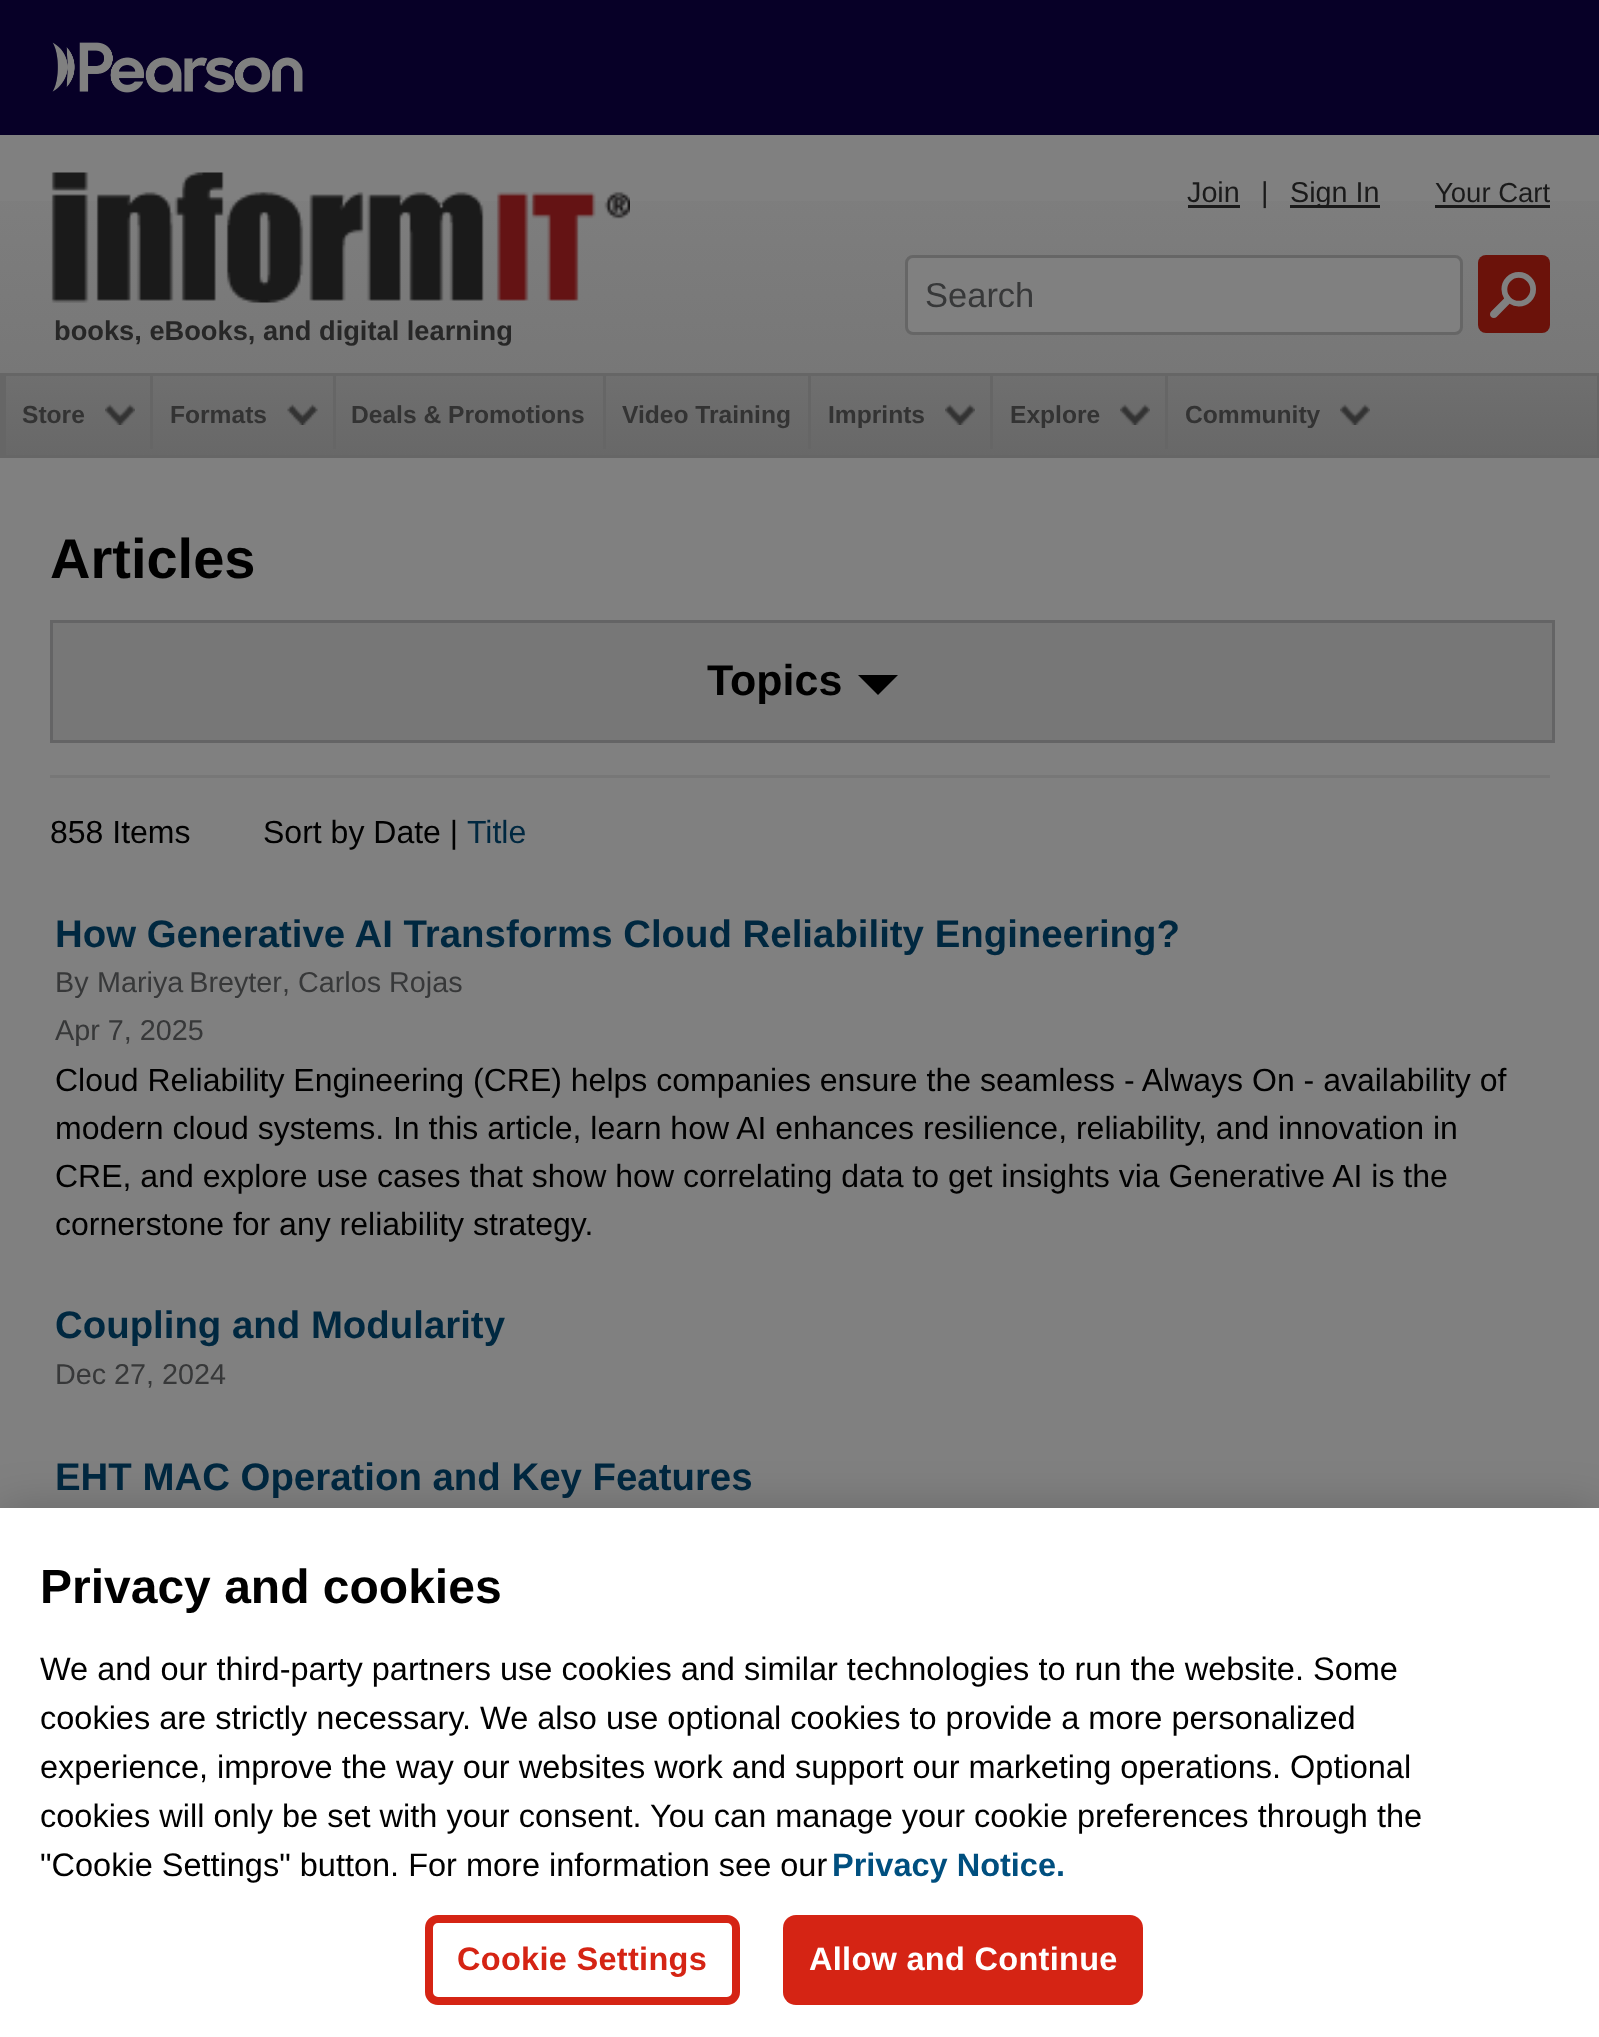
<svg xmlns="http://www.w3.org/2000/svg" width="1599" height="2037">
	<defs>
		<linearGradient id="g1" gradientUnits="userSpaceOnUse" x1="800" y1="135" x2="800" y2="373"><stop offset="0" stop-color="#808080" /><stop offset="1" stop-color="#777777" /></linearGradient>
		<linearGradient id="g2" gradientUnits="userSpaceOnUse" x1="800" y1="375" x2="800" y2="455"><stop offset="0" stop-color="#6F6F6F" /><stop offset="1" stop-color="#686868" /></linearGradient>
	</defs>
	<rect width="100%" height="100%" fill="#808080" />
	<rect x="0" y="0" width="1599" height="135" fill="#070027" />
	<image x="52" y="42" width="251" height="51" href="assets/img1.png" />
	<rect x="0" y="201" width="1599" height="172" fill="url(#g1)" />
	<image x="51" y="172" width="579" height="131" href="assets/img2.png" />
	<text x="1187" y="202" font-family="Liberation Sans" font-size="28.75" fill="#1A1A1A">Join</text>
	<rect x="1188" y="205" width="52" height="3" fill="#1A1A1A" />
	<text x="1261" y="202" font-family="Liberation Sans" font-size="28.75" fill="#1A1A1A">|</text>
	<rect x="1290" y="205" width="90" height="3" fill="#1A1A1A" />
	<text x="1290" y="202" font-family="Liberation Sans" font-size="28.75" fill="#1A1A1A">Sign In</text>
	<text x="1435" y="202" font-family="Liberation Sans" font-size="27.5" fill="#1A1A1A">Your Cart</text>
	<rect x="1435" y="205" width="115" height="3" fill="#1A1A1A" />
	<rect x="906.5" y="256.5" width="555" height="77" rx="6.5" fill="#808080" stroke="#666666" stroke-width="3" />
	<text x="925" y="307" font-family="Liberation Sans" font-size="34.5" fill="#373839">Search</text>
	<rect x="1478" y="255" width="72" height="78" rx="8" fill="#6B120A" />
	<text x="1490" y="318" font-family="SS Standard" font-size="46" fill="#808080">🔎</text>
	<text x="54" y="340" font-family="Liberation Sans" font-size="27.25" font-weight="700" fill="#272727">books, eBooks, and digital learning</text>
	<rect x="6" y="376" width="1591" height="79" fill="url(#g2)" />
	<rect x="1.5" y="374.5" width="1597" height="82" fill="none" stroke="#666666" stroke-width="3" />
	<image x="105" y="404" width="30" height="21" href="assets/img3.png" />
	<rect x="3" y="375" width="3" height="83" fill="#666666" />
	<text x="22" y="423" font-family="Liberation Sans" font-size="24.6" font-weight="700" fill="#333333">Store</text>
	<image x="287" y="404" width="31" height="21" href="assets/img4.png" />
	<rect x="150" y="375" width="3" height="74" fill="#666666" />
	<text x="170" y="423" font-family="Liberation Sans" font-size="24.6" font-weight="700" fill="#333333">Formats</text>
	<rect x="333" y="375" width="3" height="74" fill="#666666" />
	<text x="351" y="423" font-family="Liberation Sans" font-size="24.6" font-weight="700" fill="#333333">Deals &amp; Promotions</text>
	<rect x="603" y="375" width="3" height="74" fill="#666666" />
	<text x="622" y="423" font-family="Liberation Sans" font-size="24.6" font-weight="700" fill="#333333">Video Training</text>
	<image x="945" y="404" width="30" height="21" href="assets/img3.png" />
	<rect x="808" y="375" width="3" height="74" fill="#666666" />
	<text x="828" y="423" font-family="Liberation Sans" font-size="24.6" font-weight="700" fill="#333333">Imprints</text>
	<image x="1120" y="404" width="30" height="21" href="assets/img3.png" />
	<rect x="990" y="375" width="3" height="74" fill="#666666" />
	<text x="1010" y="423" font-family="Liberation Sans" font-size="24.6" font-weight="700" fill="#333333">Explore</text>
	<image x="1340" y="404" width="30" height="21" href="assets/img3.png" />
	<rect x="1165" y="375" width="3" height="74" fill="#666666" />
	<text x="1185" y="423" font-family="Liberation Sans" font-size="24.6" font-weight="700" fill="#333333">Community</text>
	<text x="50" y="578" font-family="Liberation Sans" font-size="56" font-weight="700" fill="#000000">Articles</text>
	<rect x="51.5" y="621.5" width="1502" height="120" fill="#777777" stroke="#646465" stroke-width="3" />
	<text x="707" y="695" font-family="Liberation Sans" font-size="43" font-weight="700" fill="#000000">Topics</text>
	<path d="M858 675H898L878 695Z" fill="#000000" />
	<rect x="50" y="775" width="1500" height="3" fill="#777777" />
	<g font-family="Liberation Sans" font-size="32" fill="#000000">
		<text x="50" y="843">858 Items</text>
		<text x="263" y="843">Sort by Date |</text>
	</g>
	<text x="467" y="843" font-family="Liberation Sans" font-size="32" fill="#002840">Title</text>
	<text x="55" y="947" font-family="Liberation Sans" font-size="38.4" font-weight="700" fill="#002840">How Generative AI Transforms Cloud Reliability Engineering?</text>
	<g font-family="Liberation Sans" font-size="28.75" fill="#373839">
		<text x="55" y="992">By</text>
		<text x="97" y="992" word-spacing="-2">Mariya Breyter</text>
		<text x="282" y="992">, Carlos Rojas</text>
		<text x="55" y="1040">Apr 7, 2025</text>
	</g>
	<g font-family="Liberation Sans" font-size="32" fill="#000000">
		<text x="55" y="1091">Cloud Reliability Engineering (CRE) helps companies ensure the seamless - Always On - availability of</text>
		<text x="55" y="1139">modern cloud systems. In this article, learn how AI enhances resilience, reliability, and innovation in</text>
		<text x="55" y="1187">CRE, and explore use cases that show how correlating data to get insights via Generative AI is the</text>
		<text x="55" y="1235">cornerstone for any reliability strategy.</text>
	</g>
	<text x="55" y="1338" font-family="Liberation Sans" font-size="38.4" font-weight="700" fill="#002840">Coupling and Modularity</text>
	<text x="55" y="1384" font-family="Liberation Sans" font-size="28.75" fill="#373839">Dec 27, 2024</text>
	<text x="55" y="1490" font-family="Liberation Sans" font-size="38.4" font-weight="700" fill="#002840">EHT MAC Operation and Key Features</text>
	<rect x="0" y="1508" width="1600" height="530" fill="#000000" fill-opacity="0.2" filter="blur(22.5px)" />
	<rect x="0" y="1508" width="1599" height="529" fill="#FFFFFF" />
	<text x="40" y="1603" font-family="Liberation Sans" font-size="48" font-weight="700" fill="#000000">Privacy and cookies</text>
	<g font-family="Liberation Sans" font-size="32.5" fill="#000000">
		<text x="40" y="1680">We and our third-party partners use cookies and similar technologies to run the website. Some</text>
		<text x="40" y="1729">cookies are strictly necessary. We also use optional cookies to provide a more personalized</text>
		<text x="40" y="1778">experience, improve the way our websites work and support our marketing operations. Optional</text>
		<text x="40" y="1827">cookies will only be set with your consent. You can manage your cookie preferences through the</text>
		<text x="40" y="1876">"Cookie Settings" button. For more information see our</text>
	</g>
	<text x="832" y="1876" font-family="Liberation Sans" font-size="32.5" font-weight="700" fill="#004F7F">Privacy Notice.</text>
	<rect x="429" y="1919" width="307" height="82" rx="9" fill="none" stroke="#D52414" stroke-width="8" />
	<text x="457" y="1970" font-family="Liberation Sans" font-size="32.5" font-weight="700" letter-spacing="0.3" fill="#D52414">Cookie Settings</text>
	<rect x="783" y="1915" width="360" height="90" rx="13" fill="#D52414" />
	<text x="809" y="1970" font-family="Liberation Sans" font-size="32.5" font-weight="700" letter-spacing="0.3" fill="#FFFFFF">Allow and Continue</text>
</svg>
